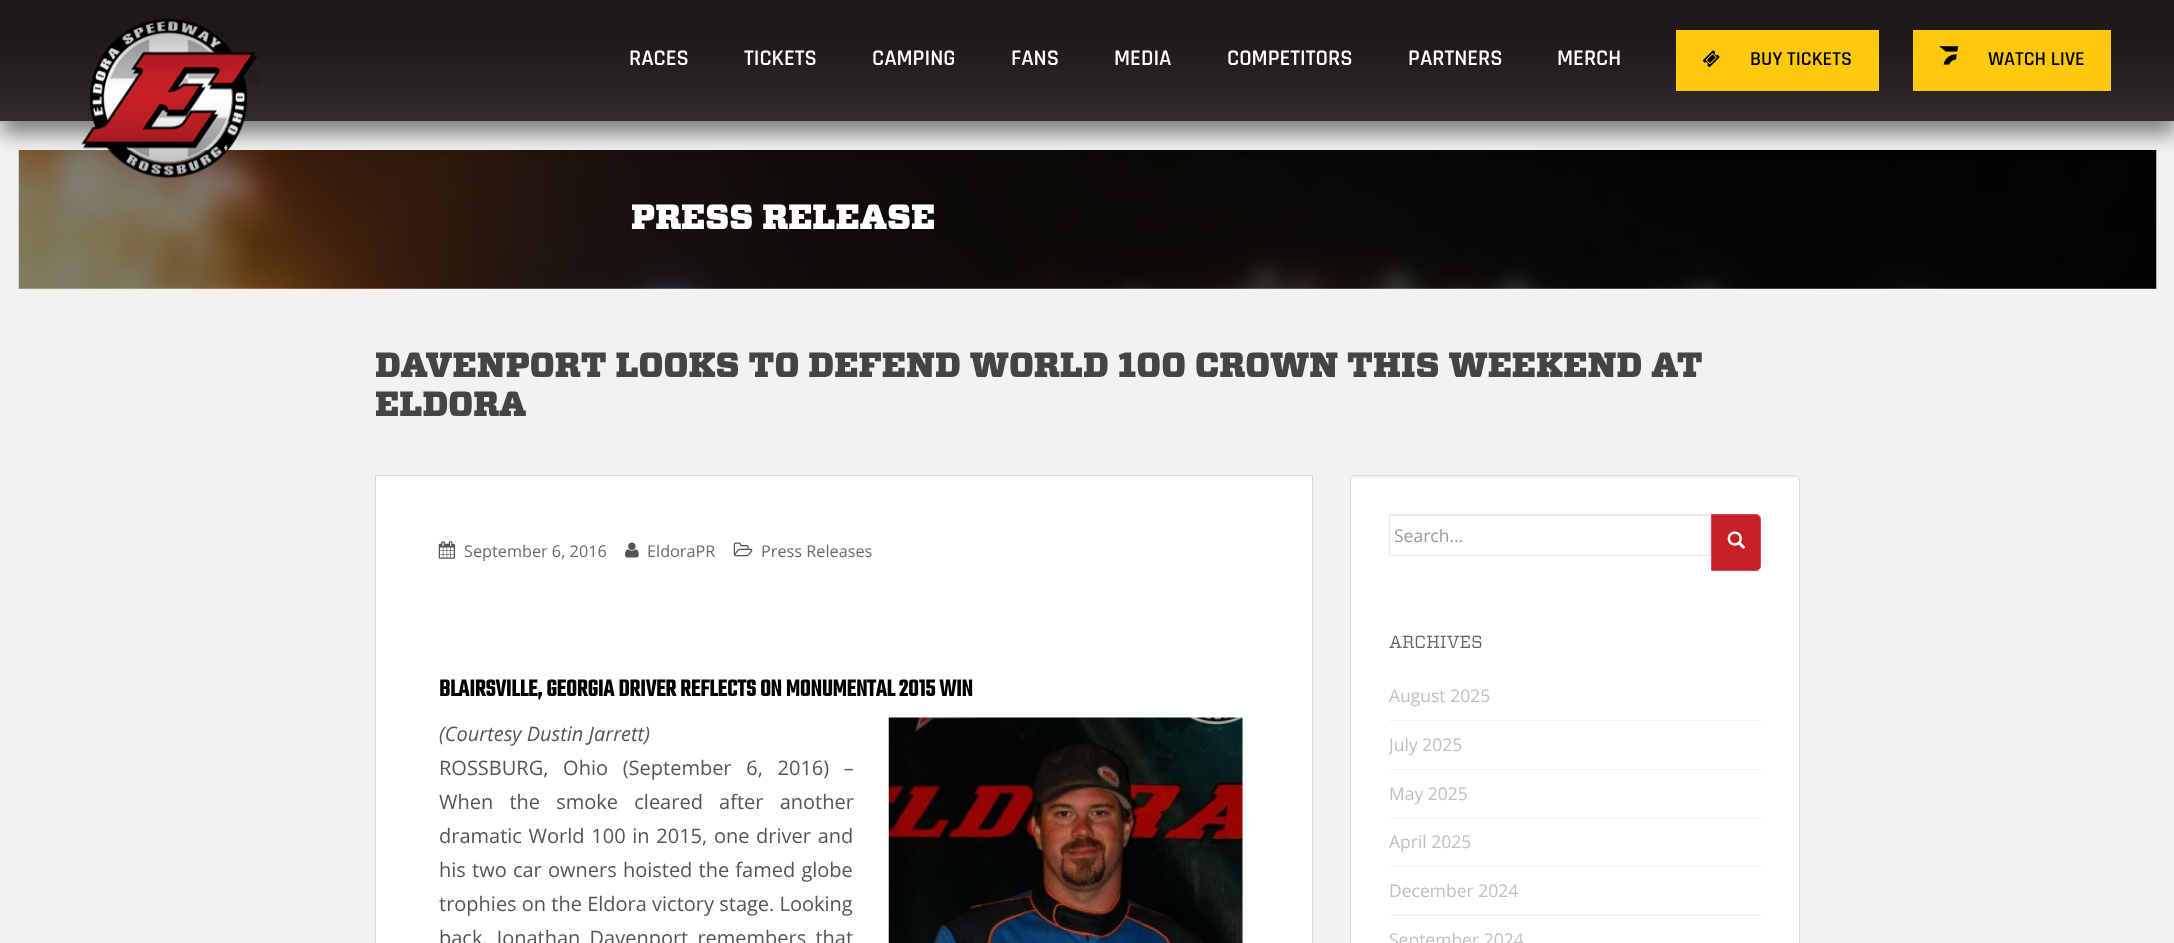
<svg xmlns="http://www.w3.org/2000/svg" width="2174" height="943">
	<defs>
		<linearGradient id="g1" gradientUnits="userSpaceOnUse" x1="1088" y1="0" x2="1088" y2="121"><stop offset="0" stop-color="#1E1818" /><stop offset="0.3" stop-color="#1E1818" /><stop offset="1" stop-color="#322B2B" /></linearGradient>
		<clipPath id="clip1"><rect x="1389" y="634" width="372" height="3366" /></clipPath>
	</defs>
	<rect width="100%" height="100%" fill="#F2F2F2" />
	<image x="18" y="150" width="2139" height="139" href="assets/img4.png" />
	<rect x="1" y="13" width="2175" height="121" fill="#040505" fill-opacity="0.47" filter="blur(10px)" />
	<rect x="0" y="0" width="2174" height="121" fill="url(#g1)" />
	<image x="81" y="18" width="181" height="160" href="assets/img1.png" />
	<g font-family="Rajdhani" font-size="22.5" font-weight="600" fill="#FFFFFF">
		<text x="629" y="65">RACES</text>
		<text x="744" y="65">TICKETS</text>
		<text x="872" y="65">CAMPING</text>
		<text x="1011" y="65">FANS</text>
		<text x="1114" y="65">MEDIA</text>
		<text x="1227" y="65">COMPETITORS</text>
		<text x="1408" y="65">PARTNERS</text>
		<text x="1557" y="65">MERCH</text>
	</g>
	<rect x="1676" y="30" width="203" height="61" fill="#FEC90D" />
	<image x="1703" y="50" width="17" height="17" href="assets/img2.png" />
	<text x="1750" y="65" font-family="Rajdhani" font-size="20" font-weight="600" fill="#000000">BUY TICKETS</text>
	<rect x="1913" y="30" width="198" height="61" fill="#FEC90D" />
	<image x="1939" y="46" width="20" height="19" href="assets/img3.png" />
	<text x="1988" y="65" font-family="Rajdhani" font-size="20" font-weight="600" fill="#000000">WATCH LIVE</text>
	<text x="631" y="229" font-family="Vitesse" font-size="35" font-weight="900" fill="#FFFFFF">PRESS RELEASE</text>
	<g font-family="Vitesse" font-size="35" font-weight="900" fill="#444444">
		<text x="375" y="377">DAVENPORT LOOKS TO DEFEND WORLD 100 CROWN THIS WEEKEND AT</text>
		<text x="375" y="416">ELDORA</text>
	</g>
	<rect x="375.5" y="475.5" width="937" height="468" fill="#FFFFFF" stroke="#DADADA" />
	<image x="438" y="541" width="17" height="18" href="assets/img5.png" />
	<text x="464" y="557" font-family="Open Sans" font-size="16.25" fill="#6B6B6B">September 6, 2016</text>
	<image x="625" y="542" width="14" height="16" href="assets/img6.png" />
	<text x="647" y="557" font-family="Open Sans" font-size="16.25" fill="#6B6B6B">EldoraPR</text>
	<image x="733" y="542" width="20" height="15" href="assets/img7.png" />
	<text x="761" y="557" font-family="Open Sans" font-size="16.25" fill="#6B6B6B">Press Releases</text>
	<text x="439" y="696" font-family="Teko" font-size="25" font-weight="700" fill="#000000">BLAIRSVILLE, GEORGIA DRIVER REFLECTS ON MONUMENTAL 2015 WIN</text>
	<text x="439" y="741" font-family="Open Sans" font-size="20" font-style="italic" fill="#555555">(Courtesy Dustin Jarrett)</text>
	<g font-family="Open Sans" font-size="20" fill="#555555">
		<text x="439" y="775" word-spacing="9.5">ROSSBURG, Ohio (September 6, 2016) –</text>
		<text x="439" y="809" word-spacing="11">When the smoke cleared after another</text>
		<text x="439" y="843" word-spacing="1.5">dramatic World 100 in 2015, one driver and</text>
		<text x="439" y="877" word-spacing="1">his two car owners hoisted the famed globe</text>
		<text x="439" y="911">trophies on the Eldora victory stage. Looking</text>
		<text x="439" y="945" word-spacing="4">back, Jonathan Davenport remembers that</text>
	</g>
	<image x="888" y="717" width="355" height="226" href="assets/img8.png" />
	<rect x="1350" y="475" width="450" height="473" rx="5" fill="#FFFFFF" />
	<path d="M1355 478H1795C1797 478 1799 479 1799 481C1799 478 1798 476 1795 476H1355L1353 477L1352 478L1351 481C1351 479 1353 478 1355 478Z" fill="#F2F2F2" />
	<rect x="1350.5" y="475.5" width="449" height="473" rx="4.5" fill="none" stroke="#DADADA" />
	<rect x="1390" y="515" width="320" height="1" fill="#ECECEC" />
	<rect x="1389.5" y="514.5" width="321" height="41" fill="none" stroke="#E8E8E8" />
	<text x="1394" y="542" font-family="Open Sans" font-size="17.5" fill="#999999">Search…</text>
	<path d="M1711.5 514.5H1756C1758.5 514.5 1760.5 516.5 1760.5 519V566C1760.5 568.5 1758.5 570.5 1756 570.5H1711.5Z" fill="#C52026" stroke="#DA4453" />
	<image x="1727" y="531" width="19" height="18" href="assets/img9.png" />
	<text x="1389" y="648" font-family="Vitesse" font-size="17.5" fill="#636467">ARCHIVES</text>
	<rect x="1389" y="720" width="372" height="1" fill="#F2F2F2" />
	<text x="1389" y="702" font-family="Open Sans" font-size="17.5" fill="#C1C0C0">August 2025</text>
	<rect x="1389" y="769" width="372" height="1" fill="#F2F2F2" />
	<g clip-path="url(#clip1)">
		<text x="1389" y="751" font-family="Open Sans" font-size="17.5" fill="#C1C0C0">July 2025</text>
	</g>
	<rect x="1389" y="818" width="372" height="1" fill="#F2F2F2" />
	<text x="1389" y="800" font-family="Open Sans" font-size="17.5" fill="#C1C0C0">May 2025</text>
	<rect x="1389" y="866" width="372" height="1" fill="#F2F2F2" />
	<text x="1389" y="848" font-family="Open Sans" font-size="17.5" fill="#C1C0C0">April 2025</text>
	<rect x="1389" y="915" width="372" height="1" fill="#F2F2F2" />
	<g font-family="Open Sans" font-size="17.5" fill="#C1C0C0">
		<text x="1389" y="897">December 2024</text>
		<text x="1389" y="946">September 2024</text>
	</g>
</svg>
